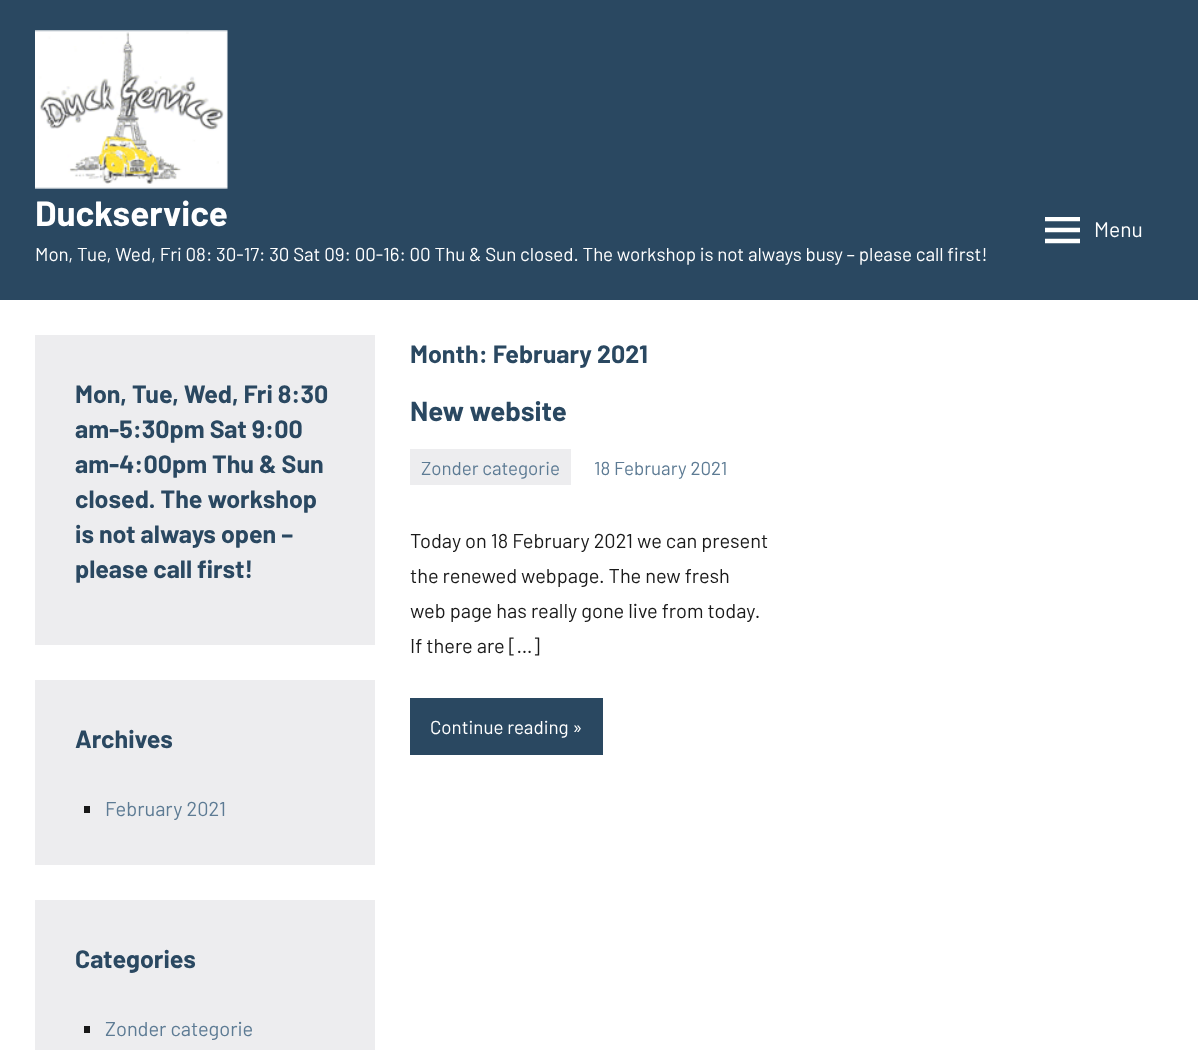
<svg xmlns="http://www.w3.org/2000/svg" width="1198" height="1050">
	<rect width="100%" height="100%" fill="#2A4861" />
	<image x="35" y="30" width="193" height="159" href="assets/img1.png" />
	<text x="35" y="226" font-family="Barlow" font-size="35" font-weight="700" fill="#FFFFFF">Duckservice</text>
	<text x="35" y="261" font-family="Barlow" font-size="18.75" fill="#FFFFFF">Mon, Tue, Wed, Fri 08: 30-17: 30 Sat 09: 00-16: 00 Thu &amp; Sun closed. The workshop is not always busy – please call first!</text>
	<image x="1045" y="217" width="35" height="27" href="assets/img2.png" />
	<text x="1094" y="237" font-family="Barlow" font-size="21" fill="#FFFFFF">Menu</text>
	<rect x="0" y="300" width="1198" height="750" fill="#FFFFFF" />
	<rect x="35" y="335" width="340" height="310" fill="#EDEDEF" />
	<g font-family="Barlow" font-size="25" font-weight="700" fill="#2A4861">
		<text x="75" y="403">Mon, Tue, Wed, Fri 8:30</text>
		<text x="75" y="438">am-5:30pm Sat 9:00</text>
		<text x="75" y="473">am-4:00pm Thu &amp; Sun</text>
		<text x="75" y="508">closed. The workshop</text>
		<text x="75" y="543">is not always open –</text>
		<text x="75" y="578">please call first!</text>
	</g>
	<rect x="35" y="680" width="340" height="185" fill="#EDEDEF" />
	<text x="75" y="748" font-family="Barlow" font-size="25" font-weight="700" fill="#2A4861">Archives</text>
	<rect x="84" y="806" width="6" height="7" fill="#181818" />
	<text x="105" y="816" font-family="Barlow" font-size="20" fill="#5D7B94">February 2021</text>
	<rect x="35" y="900" width="340" height="150" fill="#EDEDEF" />
	<text x="75" y="968" font-family="Barlow" font-size="25" font-weight="700" fill="#2A4861">Categories</text>
	<rect x="84" y="1026" width="6" height="7" fill="#181818" />
	<text x="105" y="1036" font-family="Barlow" font-size="20" fill="#5D7B94">Zonder categorie</text>
	<text x="410" y="363" font-family="Barlow" font-size="25" font-weight="700" fill="#2A4861">Month: February 2021</text>
	<text x="410" y="421" font-family="Barlow" font-size="27.5" font-weight="700" fill="#2A4861">New website</text>
	<rect x="410" y="449" width="161" height="36" fill="#EDEDEF" />
	<g font-family="Barlow" font-size="18.75" fill="#5D7B94">
		<text x="421" y="475">Zonder categorie</text>
		<text x="594" y="475">18 February 2021</text>
	</g>
	<g font-family="Barlow" font-size="20" fill="#1A1A1A">
		<text x="410" y="548">Today on 18 February 2021 we can present</text>
		<text x="410" y="583">the renewed webpage. The new fresh</text>
		<text x="410" y="618">web page has really gone live from today.</text>
		<text x="410" y="653">If there are […]</text>
	</g>
	<rect x="410" y="698" width="193" height="57" fill="#2A4861" />
	<text x="430" y="734" font-family="Barlow" font-size="18.75" fill="#FFFFFF">Continue reading »</text>
</svg>
